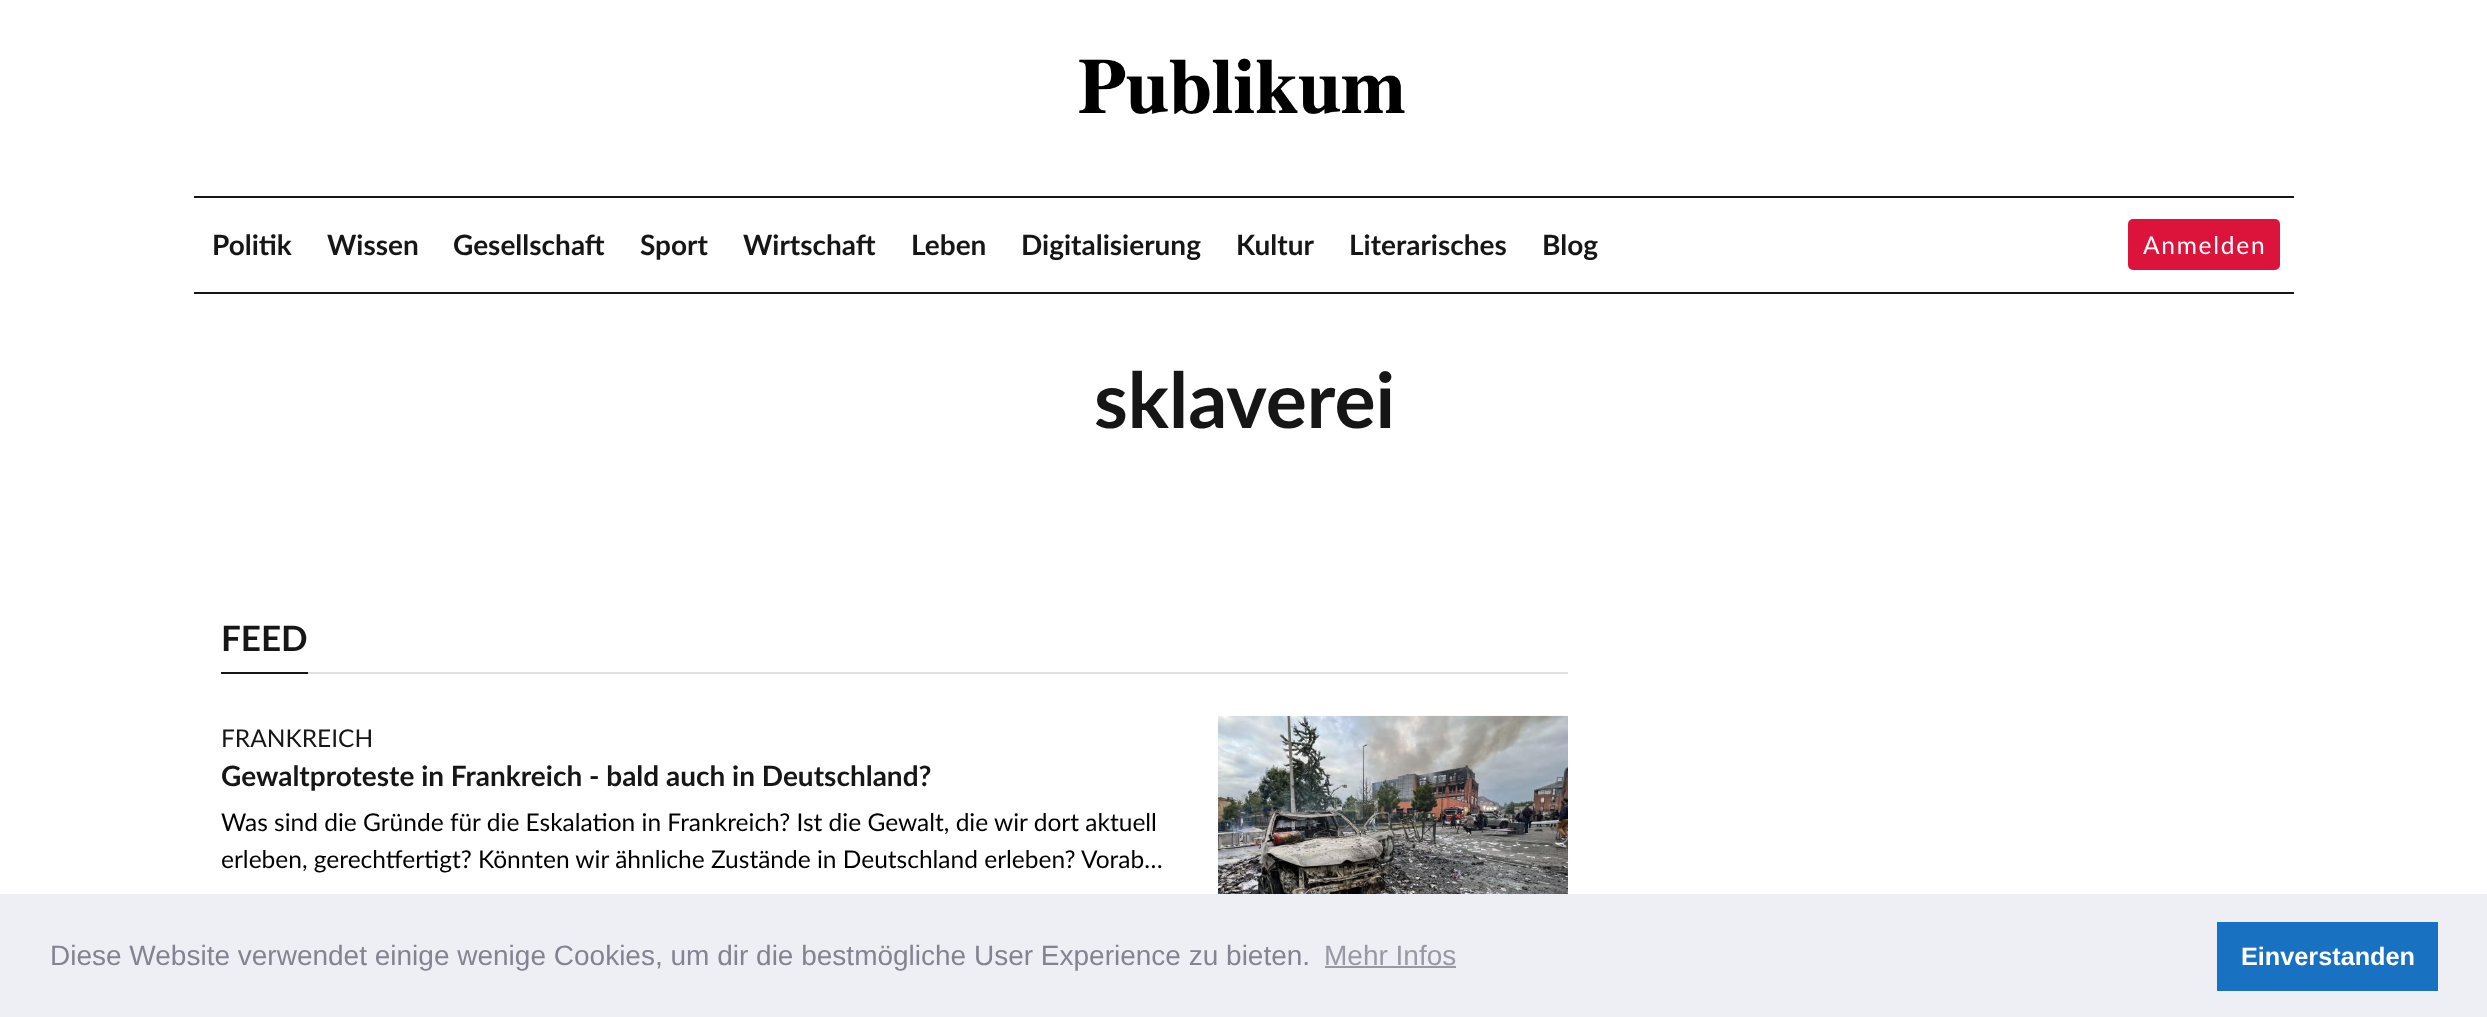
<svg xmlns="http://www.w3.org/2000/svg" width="2487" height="1017">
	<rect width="100%" height="100%" fill="#FFFFFF" />
	<image x="1079" y="58" width="326" height="56" href="assets/img1.png" />
	<rect x="194" y="196" width="2100" height="2" fill="#161616" />
	<rect x="194" y="292" width="2100" height="2" fill="#161616" />
	<g font-family="Lato" font-size="28" font-weight="700" fill="#161616">
		<text x="212" y="255">Politik</text>
		<text x="327" y="255">Wissen</text>
		<text x="453" y="255">Gesellschaft</text>
		<text x="640" y="255">Sport</text>
		<text x="743" y="255">Wirtschaft</text>
		<text x="911" y="255">Leben</text>
		<text x="1021" y="255">Digitalisierung</text>
		<text x="1236" y="255">Kultur</text>
		<text x="1349" y="255">Literarisches</text>
		<text x="1542" y="255">Blog</text>
	</g>
	<rect x="2128" y="219" width="152" height="51" rx="5" fill="#DC143C" />
	<text x="2143" y="254" font-family="Lato" font-size="24.5" letter-spacing="1.75" fill="#FFFFFF">Anmelden</text>
	<text x="1094" y="428" font-family="Lato" font-size="77" font-weight="700" fill="#161616">sklaverei</text>
	<rect x="308" y="672" width="1260" height="2" fill="#E0E0E0" />
	<rect x="221" y="672" width="87" height="2" fill="#161616" />
	<text x="221" y="651" font-family="Lato" font-size="35" font-weight="700" fill="#161616">FEED</text>
	<text x="221" y="747" font-family="Lato" font-size="24.5" fill="#161616">FRANKREICH</text>
	<text x="221" y="786" font-family="Lato" font-size="28" font-weight="700" fill="#161616">Gewaltproteste in Frankreich - bald auch in Deutschland?</text>
	<g font-family="Lato" font-size="24.5" fill="#000000">
		<text x="221" y="831">Was sind die Gründe für die Eskalation in Frankreich? Ist die Gewalt, die wir dort aktuell</text>
		<text x="221" y="868">erleben, gerechtfertigt? Könnten wir ähnliche Zustände in Deutschland erleben? Vorab…</text>
	</g>
	<image x="1218" y="715" width="350" height="179" href="assets/img2.png" />
	<rect x="0" y="894" width="2487" height="123" fill="#EDEFF5" />
	<text x="50" y="965" font-family="Liberation Sans" font-size="28" fill="#838391">Diese Website verwendet einige wenige Cookies, um dir die bestmögliche User Experience zu bieten.</text>
	<text x="1324" y="965" font-family="Liberation Sans" font-size="28" fill="#9899A5">Mehr Infos</text>
	<rect x="1325" y="966" width="131" height="2" fill="#9899A5" />
	<rect x="2217" y="922" width="221" height="69" fill="#1971C2" />
	<text x="2241" y="965" font-family="Liberation Sans" font-size="25.25" font-weight="700" fill="#FFFFFF">Einverstanden</text>
</svg>
